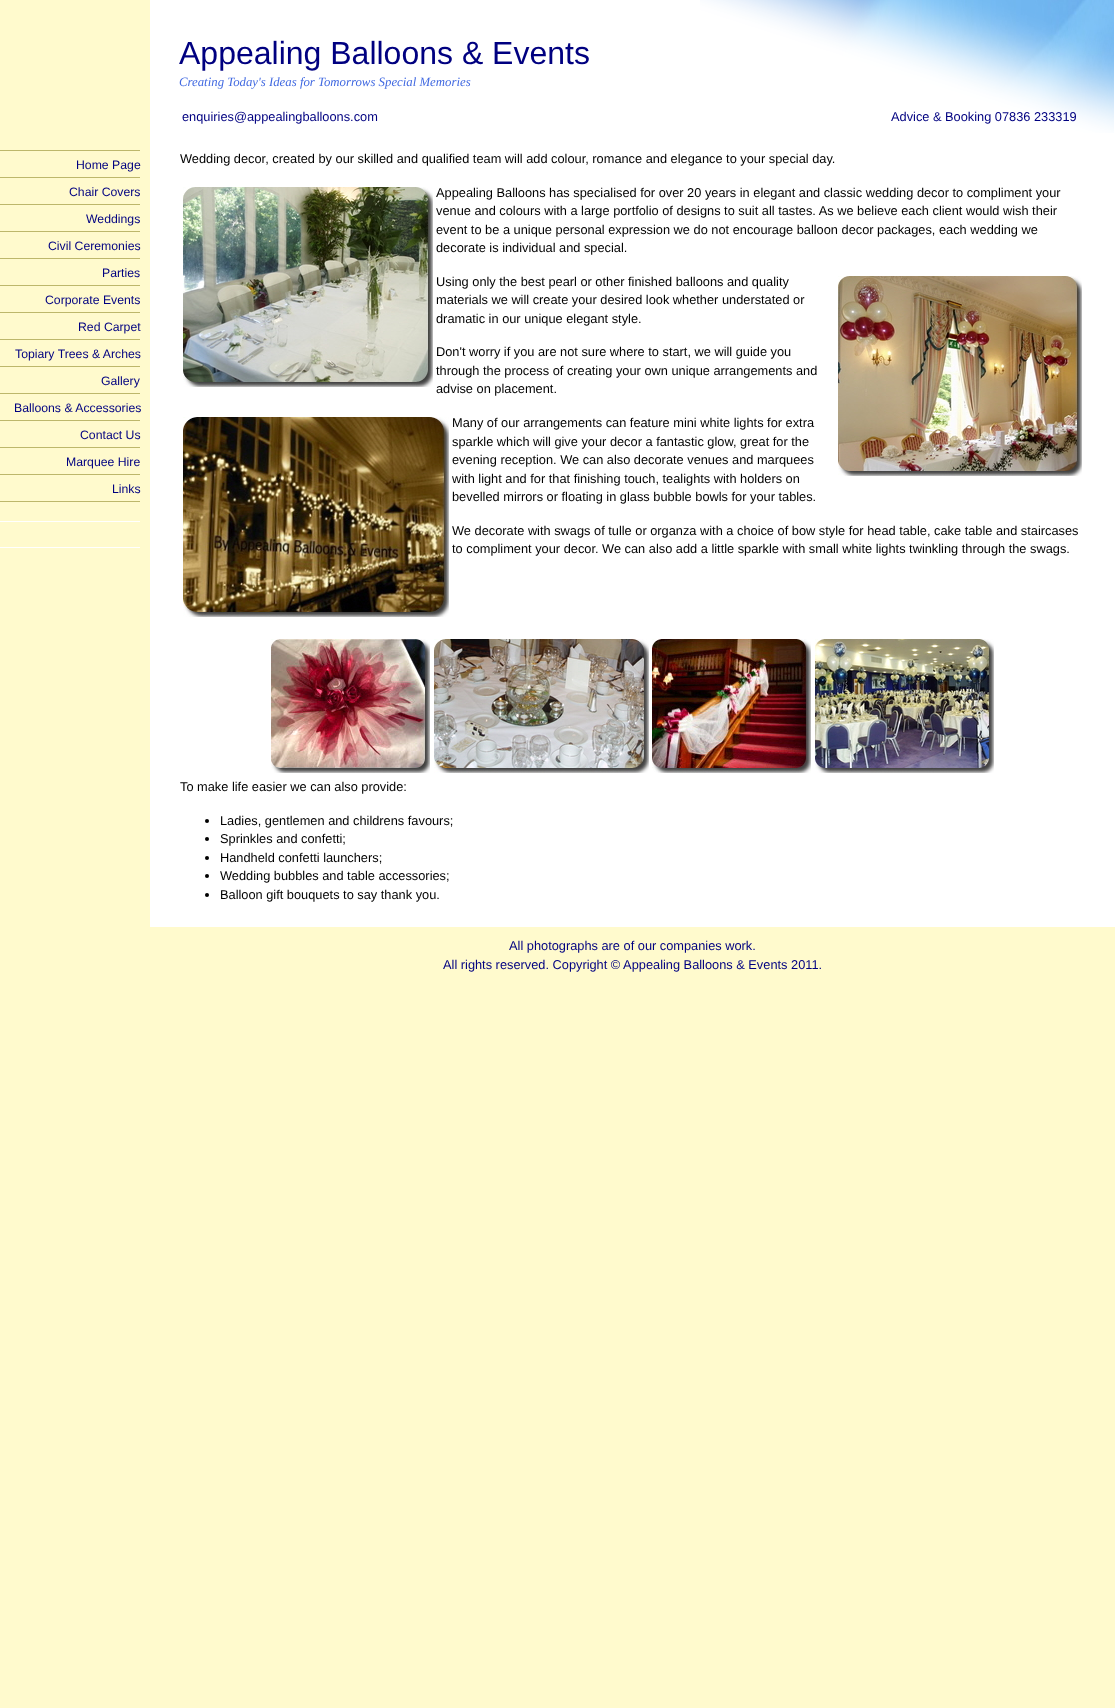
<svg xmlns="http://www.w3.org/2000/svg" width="1115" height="1708">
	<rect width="100%" height="100%" fill="#FFFACD" />
	<rect x="150" y="0" width="965" height="927" fill="#FFFFFF" />
	<image x="700" y="0" width="414" height="133" href="assets/img1.png" />
	<text x="179" y="64" font-family="Liberation Sans" font-size="32" fill="#000080">Appealing Balloons &amp; Events</text>
	<text x="179" y="86" font-family="Liberation Serif" font-size="12.8" font-style="italic" fill="#4169E1">Creating Today's Ideas for Tomorrows Special Memories</text>
	<g font-family="Liberation Sans" font-size="12.8" fill="#000080">
		<text x="182" y="121">enquiries@appealingballoons.com</text>
		<text x="891" y="121">Advice &amp; Booking 07836 233319</text>
	</g>
	<rect x="0" y="150" width="140" height="1" fill="#BDB76B" />
	<rect x="0" y="177" width="140" height="1" fill="#BDB76B" />
	<text x="76" y="169" font-family="Liberation Sans" font-size="12.25" fill="#000080">Home Page</text>
	<rect x="0" y="204" width="140" height="1" fill="#BDB76B" />
	<text x="69" y="196" font-family="Liberation Sans" font-size="12.25" fill="#000080">Chair Covers</text>
	<rect x="0" y="231" width="140" height="1" fill="#BDB76B" />
	<text x="86" y="223" font-family="Liberation Sans" font-size="12.25" fill="#000080">Weddings</text>
	<rect x="0" y="258" width="140" height="1" fill="#BDB76B" />
	<text x="48" y="250" font-family="Liberation Sans" font-size="12.25" fill="#000080">Civil Ceremonies</text>
	<rect x="0" y="285" width="140" height="1" fill="#BDB76B" />
	<text x="102" y="277" font-family="Liberation Sans" font-size="12.25" fill="#000080">Parties</text>
	<rect x="0" y="312" width="140" height="1" fill="#BDB76B" />
	<text x="45" y="304" font-family="Liberation Sans" font-size="12.25" fill="#000080">Corporate Events</text>
	<rect x="0" y="339" width="140" height="1" fill="#BDB76B" />
	<text x="78" y="331" font-family="Liberation Sans" font-size="12.25" fill="#000080">Red Carpet</text>
	<rect x="0" y="366" width="140" height="1" fill="#BDB76B" />
	<text x="15" y="358" font-family="Liberation Sans" font-size="12.25" fill="#000080">Topiary Trees &amp; Arches</text>
	<rect x="0" y="393" width="140" height="1" fill="#BDB76B" />
	<text x="101" y="385" font-family="Liberation Sans" font-size="12.25" fill="#000080">Gallery</text>
	<rect x="0" y="420" width="140" height="1" fill="#BDB76B" />
	<text x="14" y="412" font-family="Liberation Sans" font-size="12.25" fill="#000080">Balloons &amp; Accessories</text>
	<rect x="0" y="447" width="140" height="1" fill="#BDB76B" />
	<text x="80" y="439" font-family="Liberation Sans" font-size="12.25" fill="#000080">Contact Us</text>
	<rect x="0" y="474" width="140" height="1" fill="#BDB76B" />
	<text x="66" y="466" font-family="Liberation Sans" font-size="12.25" fill="#000080">Marquee Hire</text>
	<rect x="0" y="501" width="140" height="1" fill="#BDB76B" />
	<text x="112" y="493" font-family="Liberation Sans" font-size="12.25" fill="#000080">Links</text>
	<rect x="0" y="521" width="140" height="1" fill="#FFFFFF" />
	<rect x="0" y="547" width="140" height="1" fill="#FFFFFF" />
	<text x="180" y="163" font-family="Liberation Sans" font-size="12.8" fill="#000000">Wedding decor, created by our skilled and qualified team will add colour, romance and elegance to your special day.</text>
	<image x="183" y="187" width="250" height="200" href="assets/img2.png" />
	<g font-family="Liberation Sans" font-size="12.8" fill="#000000">
		<text x="436" y="197">Appealing Balloons has specialised for over 20 years in elegant and classic wedding decor to compliment your</text>
		<text x="436" y="215">venue and colours with a large portfolio of designs to suit all tastes. As we believe each client would wish their</text>
		<text x="436" y="234">event to be a unique personal expression we do not encourage balloon decor packages, each wedding we</text>
		<text x="436" y="252">decorate is individual and special.</text>
		<text x="436" y="286">Using only the best pearl or other finished balloons and quality</text>
		<text x="436" y="304">materials we will create your desired look whether understated or</text>
		<text x="436" y="323">dramatic in our unique elegant style.</text>
	</g>
	<image x="838" y="276" width="244" height="200" href="assets/img3.png" />
	<g font-family="Liberation Sans" font-size="12.8" fill="#000000">
		<text x="436" y="356">Don't worry if you are not sure where to start, we will guide you</text>
		<text x="436" y="375">through the process of creating your own unique arrangements and</text>
		<text x="436" y="393">advise on placement.</text>
	</g>
	<image x="183" y="417" width="266" height="200" href="assets/img4.png" />
	<g font-family="Liberation Sans" font-size="12.8" fill="#000000">
		<text x="452" y="427">Many of our arrangements can feature mini white lights for extra</text>
		<text x="452" y="446">sparkle which will give your decor a fantastic glow, great for the</text>
		<text x="452" y="464">evening reception. We can also decorate venues and marquees</text>
		<text x="452" y="483">with light and for that finishing touch, tealights with holders on</text>
		<text x="452" y="501">bevelled mirrors or floating in glass bubble bowls for your tables.</text>
		<text x="452" y="535">We decorate with swags of tulle or organza with a choice of bow style for head table, cake table and staircases</text>
		<text x="452" y="553">to compliment your decor. We can also add a little sparkle with small white lights twinkling through the swags.</text>
	</g>
	<image x="271" y="639" width="159" height="134" href="assets/img5.png" />
	<image x="434" y="639" width="215" height="134" href="assets/img6.png" />
	<image x="652" y="639" width="159" height="134" href="assets/img7.png" />
	<image x="815" y="639" width="179" height="134" href="assets/img8.png" />
	<text x="180" y="791" font-family="Liberation Sans" font-size="12.8" fill="#000000">To make life easier we can also provide:</text>
	<circle cx="207" cy="821" r="2" fill="#000000" />
	<text x="220" y="825" font-family="Liberation Sans" font-size="12.8" fill="#000000">Ladies, gentlemen and childrens favours;</text>
	<circle cx="207" cy="839" r="2" fill="#000000" />
	<text x="220" y="843" font-family="Liberation Sans" font-size="12.8" fill="#000000">Sprinkles and confetti;</text>
	<circle cx="207" cy="858" r="2" fill="#000000" />
	<text x="220" y="862" font-family="Liberation Sans" font-size="12.8" fill="#000000">Handheld confetti launchers;</text>
	<circle cx="207" cy="876" r="2" fill="#000000" />
	<text x="220" y="880" font-family="Liberation Sans" font-size="12.8" fill="#000000">Wedding bubbles and table accessories;</text>
	<circle cx="207" cy="895" r="2" fill="#000000" />
	<text x="220" y="899" font-family="Liberation Sans" font-size="12.8" fill="#000000">Balloon gift bouquets to say thank you.</text>
	<g font-family="Liberation Sans" font-size="12.8" fill="#000080">
		<text x="509" y="950">All photographs are of our companies work.</text>
		<text x="443" y="969">All rights reserved. Copyright © Appealing Balloons &amp; Events 2011.</text>
	</g>
</svg>
